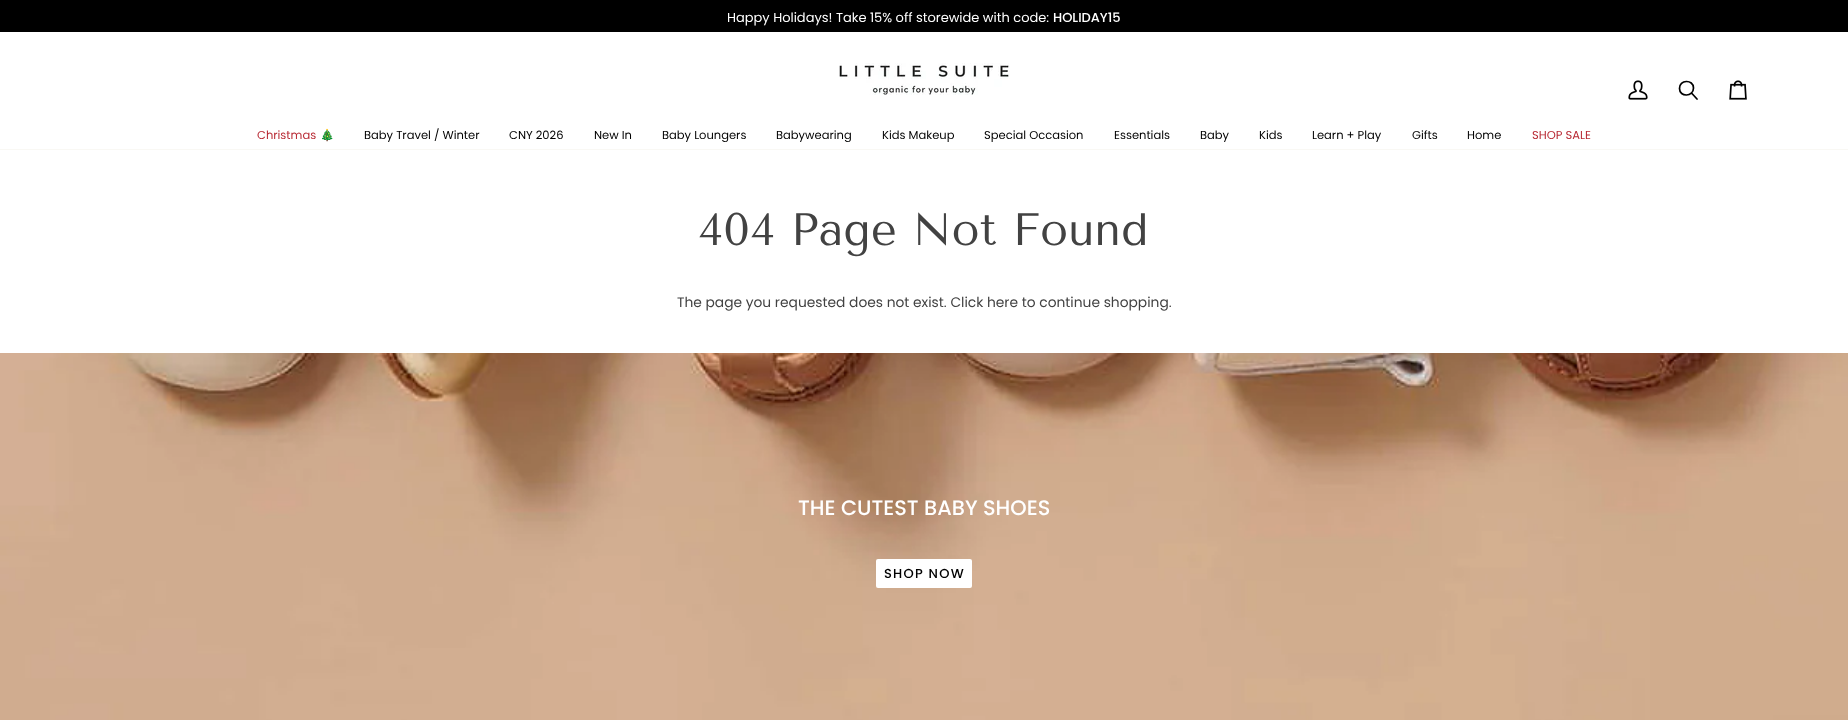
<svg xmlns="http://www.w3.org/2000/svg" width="1848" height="720">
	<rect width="100%" height="100%" fill="#FFFFFF" />
	<rect x="0" y="0" width="1848" height="32" fill="#000000" />
	<text x="727" y="22" font-family="Poppins" font-size="13" fill="#FFFFFF">Happy Holidays! Take 15% off storewide with code:</text>
	<text x="1053" y="22" font-family="Poppins" font-size="13" font-weight="500" fill="#FFFFFF">HOLIDAY15</text>
	<rect x="0" y="149" width="1848" height="1" fill="#F9F8F4" />
	<image x="839" y="63" width="171" height="32" href="assets/img1.png" />
	<image x="1628" y="80" width="20" height="20" href="assets/img2.png" />
	<path d="M1693.5 88C1693.5 97 1679.5 97.5 1679.5 88.5C1679 79.5 1693.5 79 1693.5 88ZM1697 99L1691.5 93Z" fill="none" stroke="#000000" stroke-width="1.7" stroke-linecap="round" stroke-linejoin="round" />
	<image x="1729" y="80" width="18" height="20" href="assets/img3.png" />
	<text x="257" y="139" font-family="Poppins" font-size="11.5" fill="#B82A34">Christmas</text>
	<text x="320" y="139" font-family="Noto Color Emoji" font-size="11.5" fill="#B82A34">🎄</text>
	<g font-family="Poppins" font-size="11.5" fill="#000000">
		<text x="364" y="139">Baby Travel / Winter</text>
		<text x="509" y="139">CNY 2026</text>
		<text x="594" y="139">New In</text>
		<text x="662" y="139">Baby Loungers</text>
		<text x="776" y="139">Babywearing</text>
		<text x="882" y="139">Kids Makeup</text>
		<text x="984" y="139">Special Occasion</text>
		<text x="1114" y="139">Essentials</text>
		<text x="1200" y="139">Baby</text>
		<text x="1259" y="139">Kids</text>
		<text x="1312" y="139">Learn + Play</text>
		<text x="1412" y="139">Gifts</text>
		<text x="1467" y="139">Home</text>
	</g>
	<text x="1532" y="139" font-family="Poppins" font-size="11.5" fill="#B82A34">SHOP SALE</text>
	<text x="698" y="245" font-family="Tenor Sans" font-size="45.5" fill="#424242">404 Page Not Found</text>
	<text x="677" y="307" font-family="Poppins" font-size="13.8" fill="#424242">The page you requested does not exist. Click here to continue shopping.</text>
	<image x="0" y="353" width="1848" height="367" href="assets/img4.png" />
	<text x="798" y="515" font-family="Poppins" font-size="20.9" font-weight="500" fill="#FFFFFF">THE CUTEST BABY SHOES</text>
	<rect x="876" y="559" width="96" height="29" rx="2" fill="#FFFFFF" />
	<text x="884" y="578" font-family="Poppins" font-size="13" font-weight="500" letter-spacing="1.25" fill="#000000">SHOP NOW</text>
</svg>
